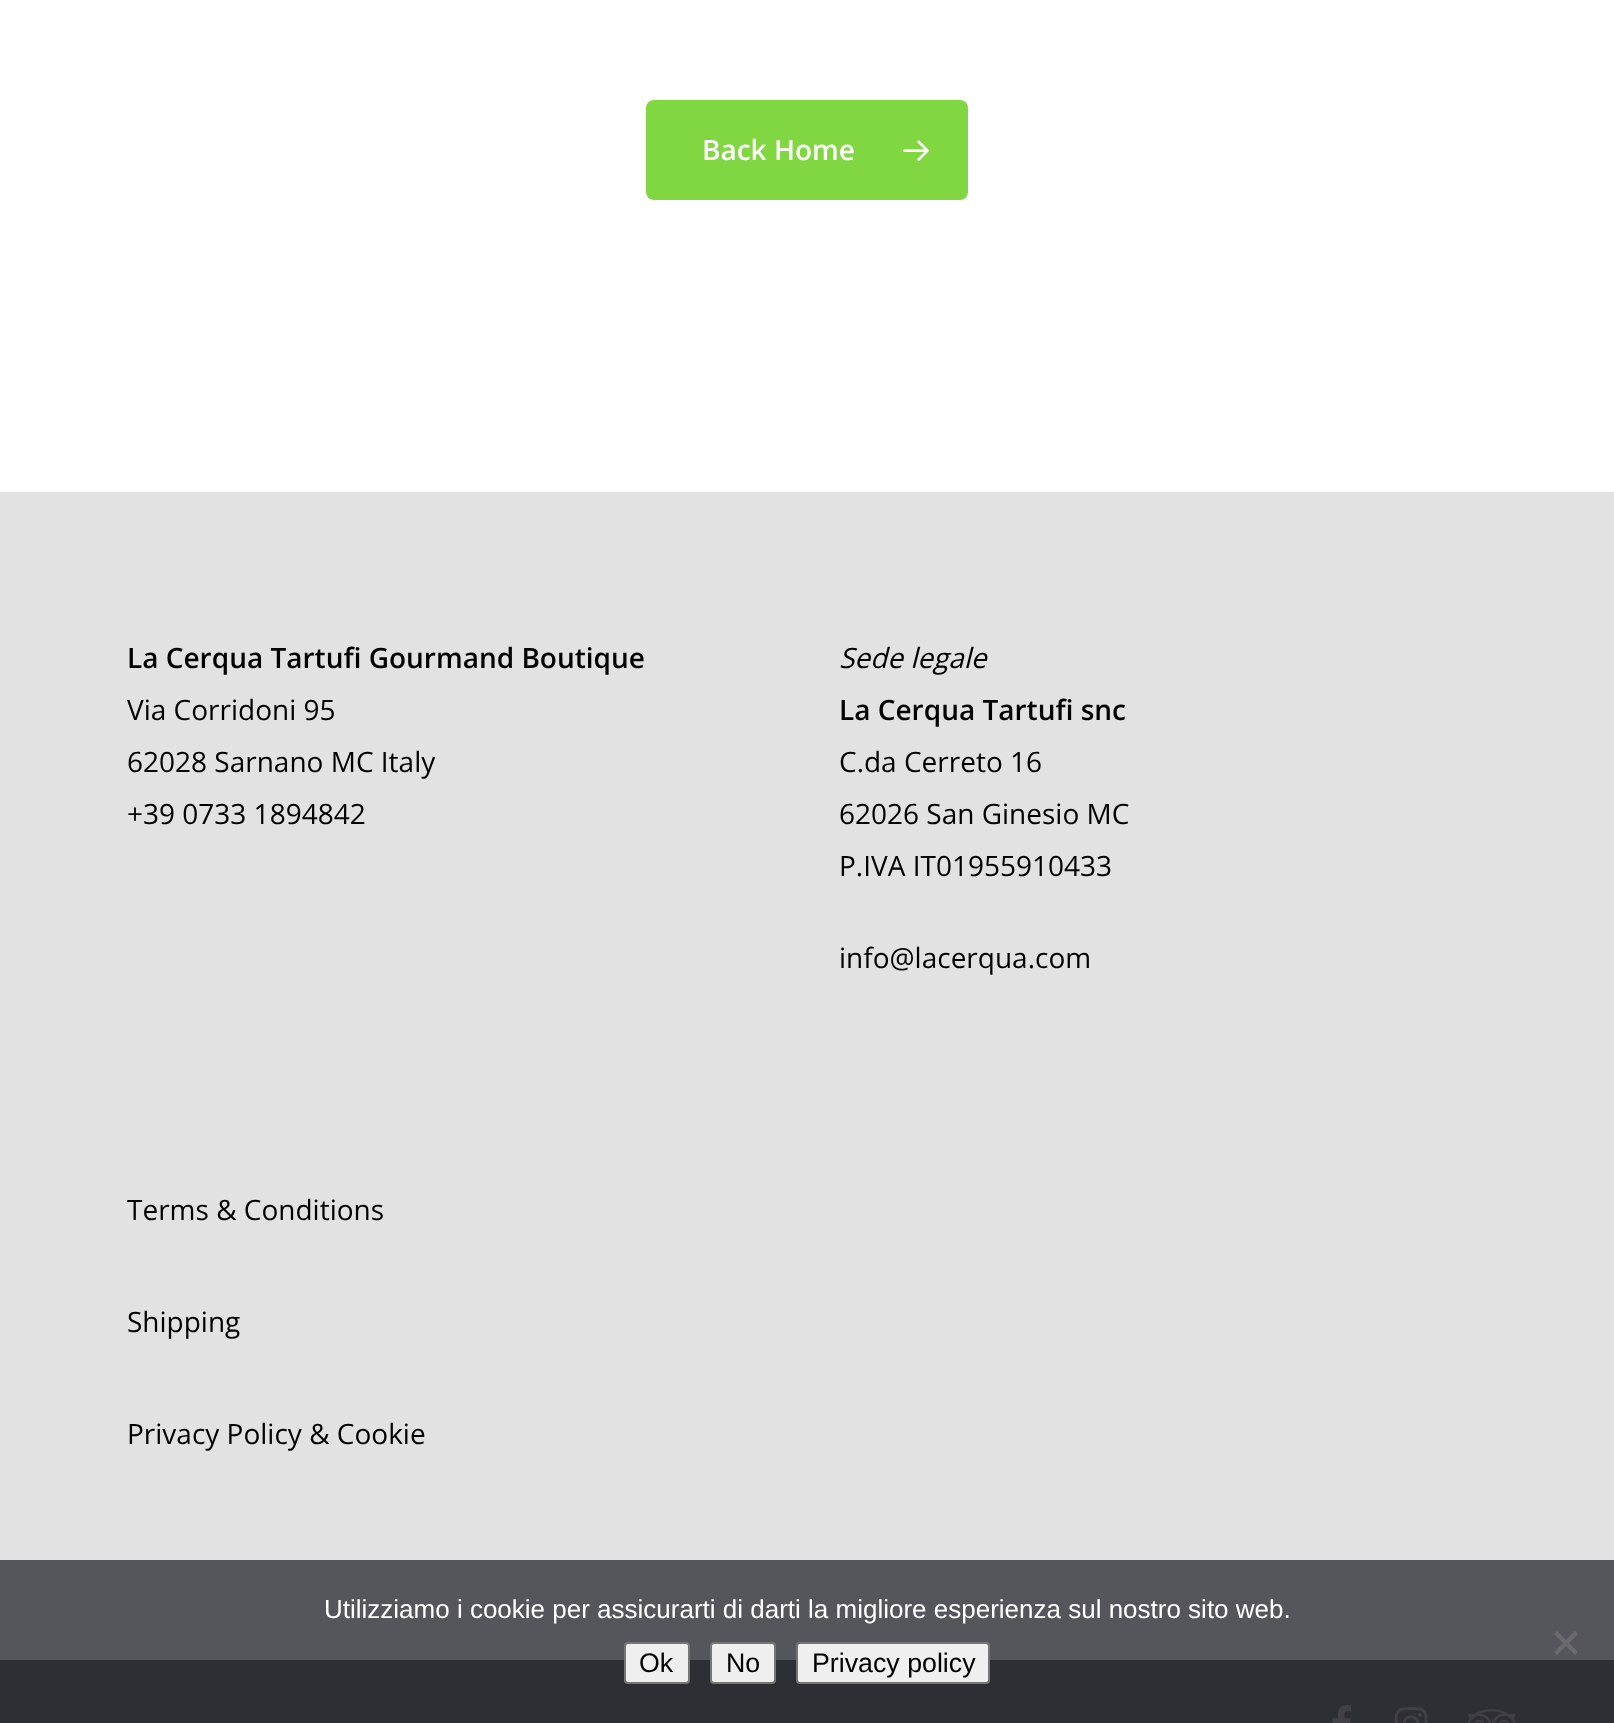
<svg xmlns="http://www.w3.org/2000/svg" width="1614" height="1723">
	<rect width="100%" height="100%" fill="#FFFFFF" />
	<rect x="646" y="100" width="322" height="100" rx="8" fill="#81D742" />
	<text x="702" y="160" font-family="Open Sans" font-size="28" font-weight="600" fill="#FFFFFF">Back Home</text>
	<image x="903" y="140" width="26" height="21" href="assets/img1.png" />
	<rect x="0" y="492" width="1614" height="1068" fill="#E2E2E2" />
	<rect x="0" y="1560" width="1614" height="100" fill="#55555C" />
	<text x="127" y="668" font-family="Open Sans" font-size="28" font-weight="600" fill="#000000">La Cerqua Tartufi Gourmand Boutique</text>
	<g font-family="Open Sans" font-size="28" fill="#000000">
		<text x="127" y="720">Via Corridoni 95</text>
		<text x="127" y="772">62028 Sarnano MC Italy</text>
		<text x="127" y="824">+39 0733 1894842</text>
	</g>
	<text x="839" y="668" font-family="Open Sans" font-size="28" font-style="italic" fill="#000000">Sede legale</text>
	<text x="839" y="720" font-family="Open Sans" font-size="28" font-weight="600" fill="#000000">La Cerqua Tartufi snc</text>
	<g font-family="Open Sans" font-size="28" fill="#000000">
		<text x="839" y="772">C.da Cerreto 16</text>
		<text x="839" y="824">62026 San Ginesio MC</text>
		<text x="839" y="876">P.IVA IT01955910433</text>
		<text x="839" y="968">info@lacerqua.com</text>
		<text x="127" y="1220">Terms &amp; Conditions</text>
		<text x="127" y="1332">Shipping</text>
		<text x="127" y="1444">Privacy Policy &amp; Cookie</text>
	</g>
	<rect x="0" y="1660" width="1614" height="63" fill="#2E2E35" />
	<image x="1332" y="1705" width="19" height="18" href="assets/img2.png" />
	<image x="1394" y="1707" width="34" height="16" href="assets/img3.png" />
	<image x="1467" y="1709" width="50" height="14" href="assets/img4.png" />
	<text x="324" y="1618" font-family="Liberation Sans" font-size="26" fill="#FFFFFF">Utilizziamo i cookie per assicurarti di darti la migliore esperienza sul nostro sito web.</text>
	<path d="M1575 1631L1578 1634L1557 1655L1554 1652Z" fill="#6B6B6E" />
	<path d="M1554 1634L1557 1631L1578 1652L1575 1655Z" fill="#6B6B6E" />
	<rect x="625" y="1643" width="64" height="40" rx="3" fill="#EFEFEF" stroke="#767676" stroke-width="2" />
	<text x="639" y="1672" font-family="Liberation Sans" font-size="26.75" fill="#000000">Ok</text>
	<rect x="711" y="1643" width="64" height="40" rx="3" fill="#EFEFEF" stroke="#767676" stroke-width="2" />
	<text x="726" y="1672" font-family="Liberation Sans" font-size="26.75" fill="#000000">No</text>
	<rect x="797" y="1643" width="192" height="40" rx="3" fill="#EFEFEF" stroke="#767676" stroke-width="2" />
	<text x="812" y="1672" font-family="Liberation Sans" font-size="26.75" fill="#000000">Privacy policy</text>
</svg>
